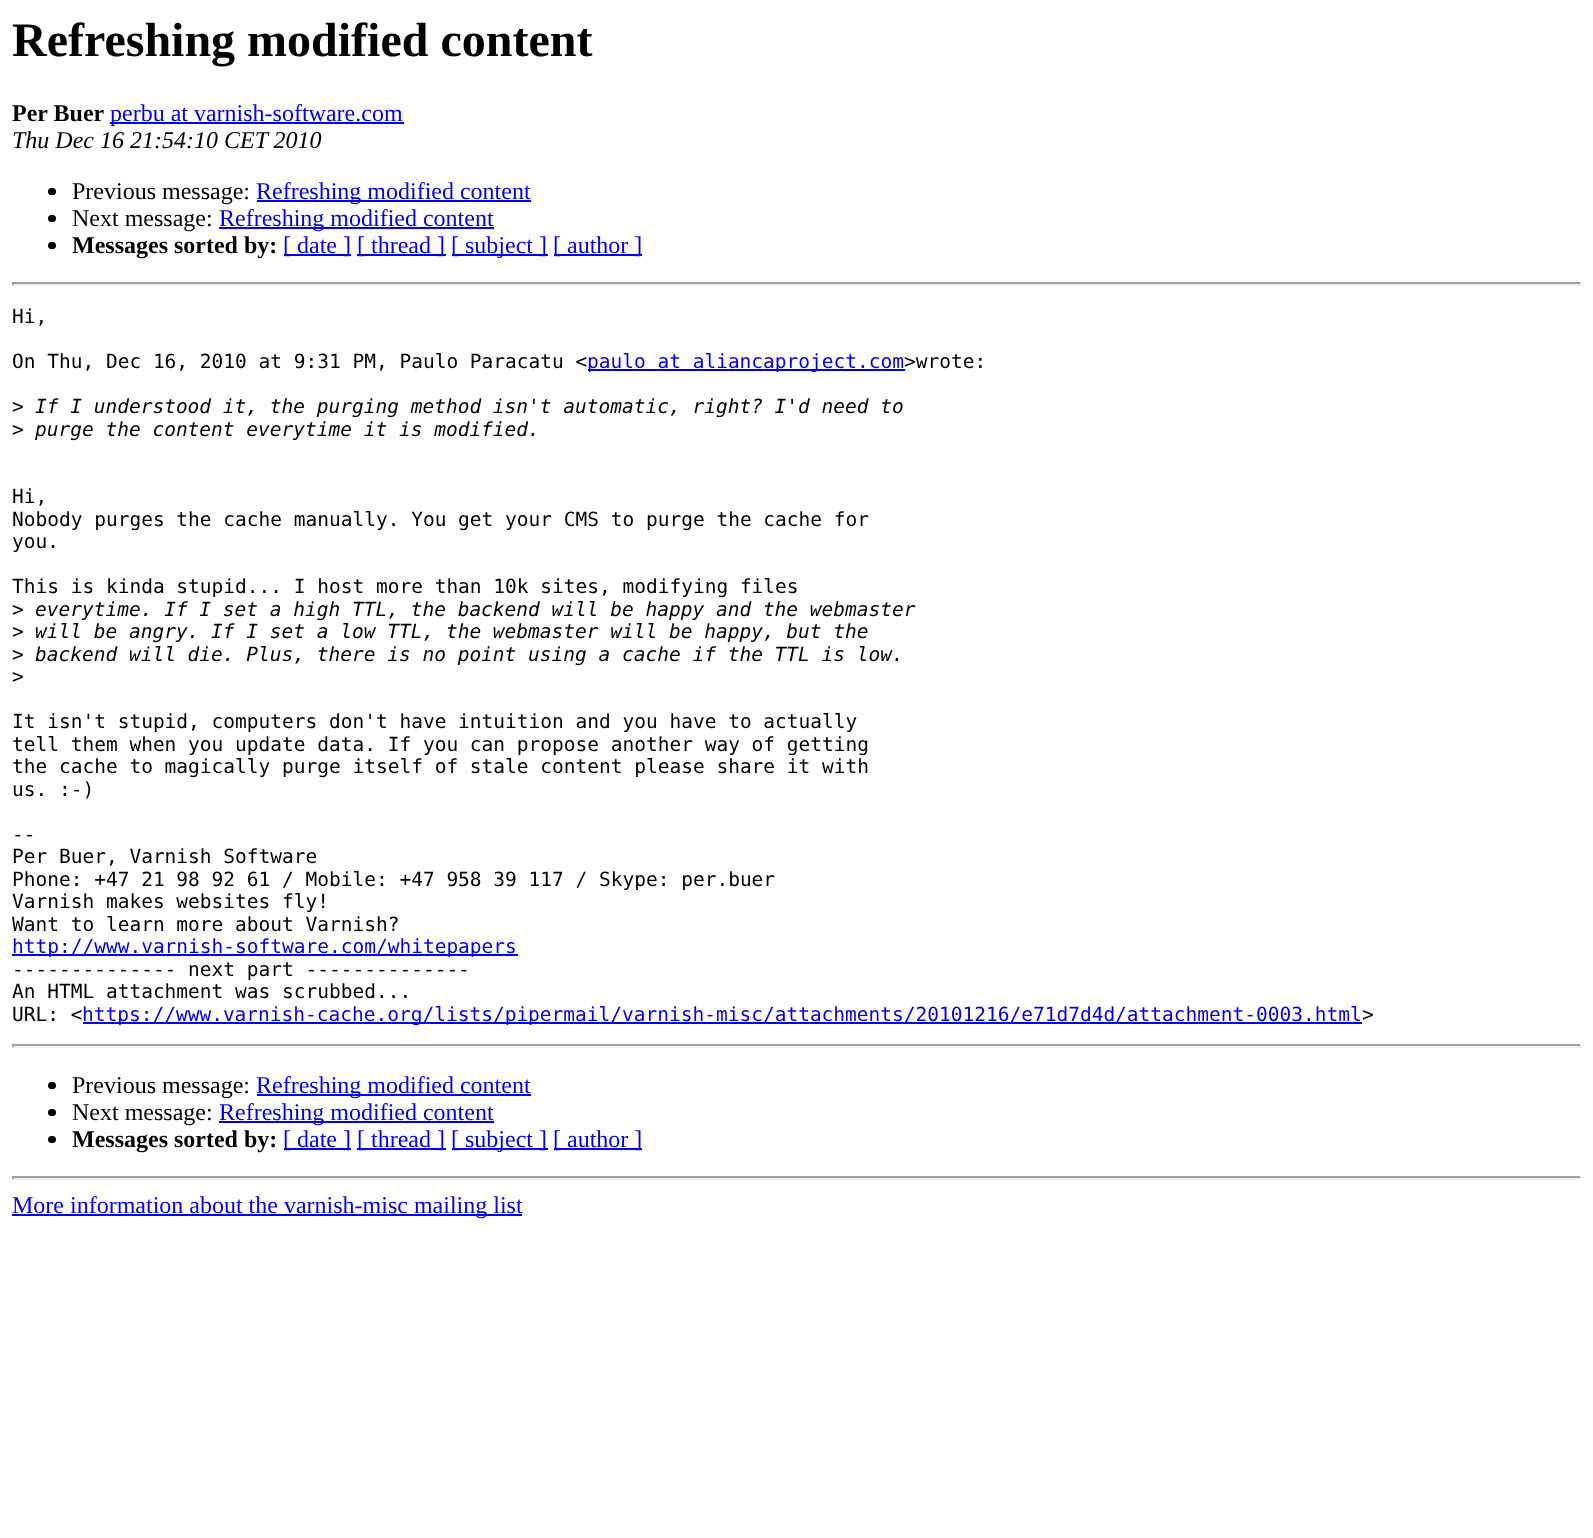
<svg xmlns="http://www.w3.org/2000/svg" width="1593" height="1538">
	<rect width="100%" height="100%" fill="#FFFFFF" />
	<text x="12" y="56" font-family="Liberation Serif" font-size="48" font-weight="700" fill="#000000">Refreshing modified content</text>
	<text x="12" y="121" font-family="Liberation Serif" font-size="24" font-weight="700" fill="#000000">Per Buer</text>
	<rect x="110" y="122" width="294" height="2" fill="#0000EE" />
	<text x="110" y="121" font-family="Liberation Serif" font-size="24" fill="#0000EE">perbu at varnish-software.com</text>
	<text x="12" y="148" font-family="Liberation Serif" font-size="24" font-style="italic" fill="#000000">Thu Dec 16 21:54:10 CET 2010</text>
	<rect x="48" y="188" width="8" height="7" rx="3.5" fill="#000000" />
	<text x="72" y="199" font-family="Liberation Serif" font-size="24" fill="#000000">Previous message:</text>
	<rect x="257" y="200" width="274" height="2" fill="#0000EE" />
	<text x="256" y="199" font-family="Liberation Serif" font-size="24" fill="#0000EE">Refreshing modified content</text>
	<rect x="48" y="215" width="8" height="7" rx="3.5" fill="#000000" />
	<text x="72" y="226" font-family="Liberation Serif" font-size="24" fill="#000000">Next message:</text>
	<rect x="219" y="227" width="275" height="2" fill="#0000EE" />
	<text x="219" y="226" font-family="Liberation Serif" font-size="24" fill="#0000EE">Refreshing modified content</text>
	<rect x="48" y="242" width="8" height="7" rx="3.5" fill="#000000" />
	<text x="72" y="253" font-family="Liberation Serif" font-size="24" font-weight="700" fill="#000000">Messages sorted by:</text>
	<rect x="284" y="254" width="67" height="2" fill="#0000EE" />
	<text x="283" y="253" font-family="Liberation Serif" font-size="24" fill="#0000EE">[ date ]</text>
	<rect x="357" y="254" width="89" height="2" fill="#0000EE" />
	<text x="357" y="253" font-family="Liberation Serif" font-size="24" fill="#0000EE">[ thread ]</text>
	<rect x="452" y="254" width="96" height="2" fill="#0000EE" />
	<text x="451" y="253" font-family="Liberation Serif" font-size="24" fill="#0000EE">[ subject ]</text>
	<rect x="554" y="254" width="88" height="2" fill="#0000EE" />
	<text x="553" y="253" font-family="Liberation Serif" font-size="24" fill="#0000EE">[ author ]</text>
	<rect x="12" y="282" width="1569" height="2" fill="#9F9F9F" />
	<rect x="1580" y="282" width="2" height="3" fill="#EEEEEE" />
	<rect x="12" y="284" width="1569" height="2" fill="#EEEEEE" />
	<rect x="12" y="282" width="2" height="3" fill="#9F9F9F" />
	<g font-family="DejaVu Sans Mono" font-size="19.5" fill="#000000">
		<text x="12" y="323">Hi,</text>
		<text x="12" y="368">On Thu, Dec 16, 2010 at 9:31 PM, Paulo Paracatu &lt;</text>
	</g>
	<rect x="588" y="369" width="317" height="2" fill="#0000EE" />
	<text x="587" y="368" font-family="DejaVu Sans Mono" font-size="19.5" fill="#0000EE">paulo at aliancaproject.com</text>
	<g font-family="DejaVu Sans Mono" font-size="19.5" fill="#000000">
		<text x="904" y="368">&gt;wrote:</text>
		<text x="12" y="413">&gt;</text>
	</g>
	<text x="35" y="413" font-family="DejaVu Sans Mono" font-size="19.5" font-style="italic" fill="#000000">If I understood it, the purging method isn't automatic, right? I'd need to</text>
	<text x="12" y="436" font-family="DejaVu Sans Mono" font-size="19.5" fill="#000000">&gt;</text>
	<text x="35" y="436" font-family="DejaVu Sans Mono" font-size="19.5" font-style="italic" fill="#000000">purge the content everytime it is modified.</text>
	<g font-family="DejaVu Sans Mono" font-size="19.5" fill="#000000">
		<text x="12" y="503">Hi,</text>
		<text x="12" y="526">Nobody purges the cache manually. You get your CMS to purge the cache for</text>
		<text x="12" y="548">you.</text>
		<text x="12" y="593">This is kinda stupid... I host more than 10k sites, modifying files</text>
		<text x="12" y="616">&gt;</text>
	</g>
	<text x="35" y="616" font-family="DejaVu Sans Mono" font-size="19.5" font-style="italic" fill="#000000">everytime. If I set a high TTL, the backend will be happy and the webmaster</text>
	<text x="12" y="638" font-family="DejaVu Sans Mono" font-size="19.5" fill="#000000">&gt;</text>
	<text x="35" y="638" font-family="DejaVu Sans Mono" font-size="19.5" font-style="italic" fill="#000000">will be angry. If I set a low TTL, the webmaster will be happy, but the</text>
	<text x="12" y="661" font-family="DejaVu Sans Mono" font-size="19.5" fill="#000000">&gt;</text>
	<text x="35" y="661" font-family="DejaVu Sans Mono" font-size="19.5" font-style="italic" fill="#000000">backend will die. Plus, there is no point using a cache if the TTL is low.</text>
	<g font-family="DejaVu Sans Mono" font-size="19.5" fill="#000000">
		<text x="12" y="683">&gt;</text>
		<text x="12" y="728">It isn't stupid, computers don't have intuition and you have to actually</text>
		<text x="12" y="751">tell them when you update data. If you can propose another way of getting</text>
		<text x="12" y="773">the cache to magically purge itself of stale content please share it with</text>
		<text x="12" y="796">us. :-)</text>
		<text x="12" y="841">--</text>
		<text x="12" y="863">Per Buer, Varnish Software</text>
		<text x="12" y="886">Phone: +47 21 98 92 61 / Mobile: +47 958 39 117 / Skype: per.buer</text>
		<text x="12" y="908">Varnish makes websites fly!</text>
		<text x="12" y="931">Want to learn more about Varnish?</text>
	</g>
	<rect x="12" y="954" width="506" height="2" fill="#0000EE" />
	<text x="12" y="953" font-family="DejaVu Sans Mono" font-size="19.5" fill="#0000EE">http://www.varnish-software.com/whitepapers</text>
	<g font-family="DejaVu Sans Mono" font-size="19.5" fill="#000000">
		<text x="12" y="976">-------------- next part --------------</text>
		<text x="12" y="998">An HTML attachment was scrubbed...</text>
		<text x="12" y="1021">URL: &lt;</text>
	</g>
	<rect x="83" y="1022" width="1279" height="2" fill="#0000EE" />
	<text x="82" y="1021" font-family="DejaVu Sans Mono" font-size="19.5" fill="#0000EE">https://www.varnish-cache.org/lists/pipermail/varnish-misc/attachments/20101216/e71d7d4d/attachment-0003.html</text>
	<text x="1362" y="1021" font-family="DejaVu Sans Mono" font-size="19.5" fill="#000000">&gt;</text>
	<rect x="12" y="1044" width="1569" height="2" fill="#9F9F9F" />
	<rect x="1580" y="1044" width="2" height="3" fill="#EEEEEE" />
	<rect x="12" y="1046" width="1569" height="2" fill="#EEEEEE" />
	<rect x="12" y="1044" width="2" height="3" fill="#9F9F9F" />
	<rect x="48" y="1082" width="8" height="7" rx="3.5" fill="#000000" />
	<text x="72" y="1093" font-family="Liberation Serif" font-size="24" fill="#000000">Previous message:</text>
	<rect x="257" y="1094" width="274" height="2" fill="#0000EE" />
	<text x="256" y="1093" font-family="Liberation Serif" font-size="24" fill="#0000EE">Refreshing modified content</text>
	<rect x="48" y="1109" width="8" height="7" rx="3.5" fill="#000000" />
	<text x="72" y="1120" font-family="Liberation Serif" font-size="24" fill="#000000">Next message:</text>
	<rect x="219" y="1121" width="275" height="2" fill="#0000EE" />
	<text x="219" y="1120" font-family="Liberation Serif" font-size="24" fill="#0000EE">Refreshing modified content</text>
	<rect x="48" y="1136" width="8" height="7" rx="3.5" fill="#000000" />
	<text x="72" y="1147" font-family="Liberation Serif" font-size="24" font-weight="700" fill="#000000">Messages sorted by:</text>
	<rect x="284" y="1148" width="67" height="2" fill="#0000EE" />
	<text x="283" y="1147" font-family="Liberation Serif" font-size="24" fill="#0000EE">[ date ]</text>
	<rect x="357" y="1148" width="89" height="2" fill="#0000EE" />
	<text x="357" y="1147" font-family="Liberation Serif" font-size="24" fill="#0000EE">[ thread ]</text>
	<rect x="452" y="1148" width="96" height="2" fill="#0000EE" />
	<text x="451" y="1147" font-family="Liberation Serif" font-size="24" fill="#0000EE">[ subject ]</text>
	<rect x="554" y="1148" width="88" height="2" fill="#0000EE" />
	<text x="553" y="1147" font-family="Liberation Serif" font-size="24" fill="#0000EE">[ author ]</text>
	<rect x="12" y="1176" width="1569" height="2" fill="#9F9F9F" />
	<rect x="1580" y="1176" width="2" height="3" fill="#EEEEEE" />
	<rect x="12" y="1178" width="1569" height="2" fill="#EEEEEE" />
	<rect x="12" y="1176" width="2" height="3" fill="#9F9F9F" />
	<rect x="12" y="1214" width="510" height="2" fill="#0000EE" />
	<text x="12" y="1213" font-family="Liberation Serif" font-size="24" fill="#0000EE">More information about the varnish-misc mailing list</text>
</svg>
